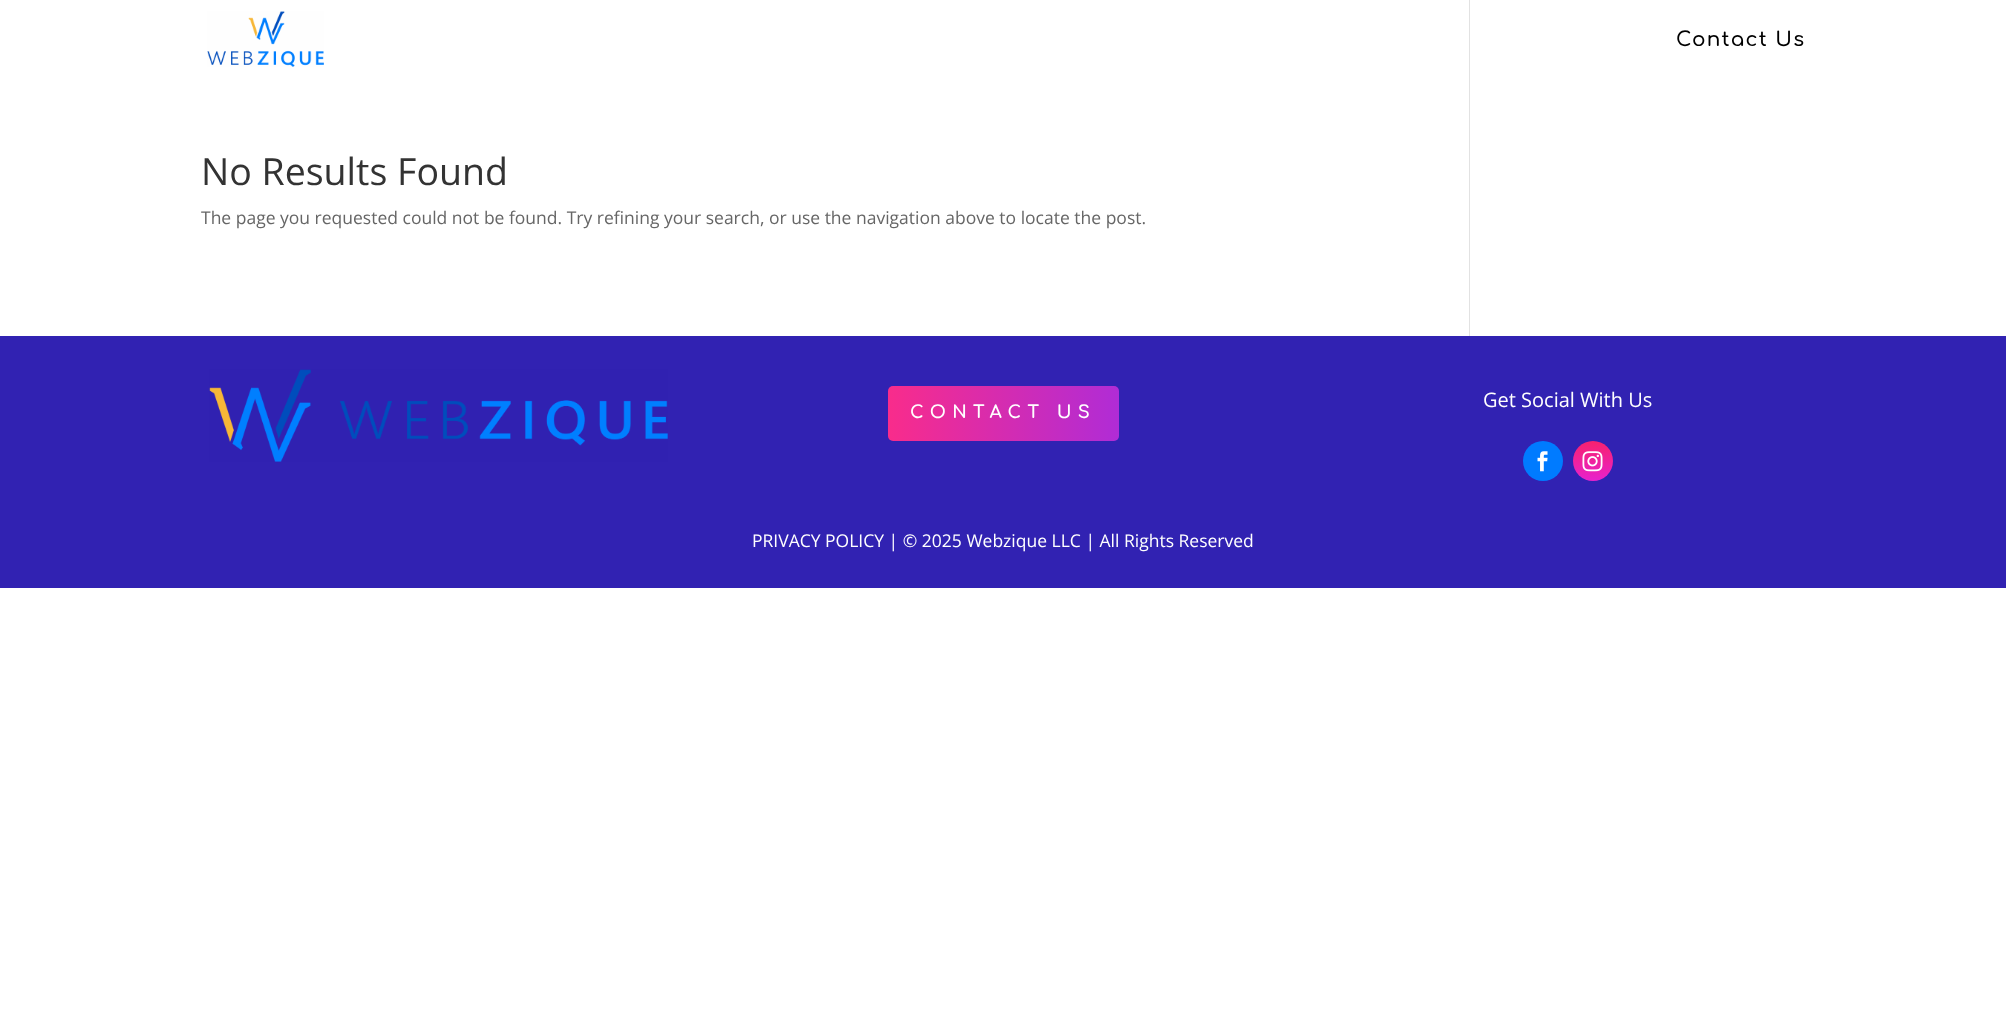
<svg xmlns="http://www.w3.org/2000/svg" width="2006" height="1013">
	<defs>
		<linearGradient id="g1" gradientUnits="userSpaceOnUse" x1="1593" y1="441" x2="1593" y2="481"><stop offset="0" stop-color="#F7226D" /><stop offset="1" stop-color="#E822CD" /></linearGradient>
		<linearGradient id="g2" gradientUnits="userSpaceOnUse" x1="888" y1="414" x2="1119" y2="414"><stop offset="0" stop-color="#F92C8B" /><stop offset="1" stop-color="#B02CD6" /></linearGradient>
	</defs>
	<rect width="100%" height="100%" fill="#FFFFFF" />
	<image x="207" y="11" width="117" height="56" href="assets/img1.png" />
	<text x="1676" y="46" font-family="Comfortaa" font-size="20" font-weight="600" letter-spacing="1.25" fill="#000000">Contact Us</text>
	<text x="201" y="185" font-family="Open Sans" font-size="37.5" fill="#333333">No Results Found</text>
	<text x="201" y="224" font-family="Open Sans" font-size="17.5" fill="#666666">The page you requested could not be found. Try refining your search, or use the navigation above to locate the post.</text>
	<rect x="1469" y="0" width="1" height="336" fill="#E2E2E2" />
	<rect x="0" y="336" width="2006" height="252" fill="#3122B2" />
	<image x="209" y="369" width="459" height="93" href="assets/img2.png" />
	<text x="1483" y="407" font-family="Open Sans" font-size="20" fill="#FFFFFF">Get Social With Us</text>
	<circle cx="1543" cy="461" r="20" fill="#007BFF" />
	<image x="1537" y="451" width="11" height="21" href="assets/img3.png" />
	<circle cx="1593" cy="461" r="20" fill="url(#g1)" />
	<image x="1582" y="451" width="21" height="21" href="assets/img4.png" />
	<rect x="888" y="386" width="231" height="55" rx="5" fill="url(#g2)" />
	<text x="910" y="418" font-family="Comfortaa" font-size="17.5" font-weight="700" letter-spacing="6.25" fill="#FFFFFF">CONTACT US</text>
	<text x="752" y="547" font-family="Open Sans" font-size="17.5" fill="#FFFFFF">PRIVACY POLICY | © 2025 Webzique LLC | All Rights Reserved</text>
</svg>
